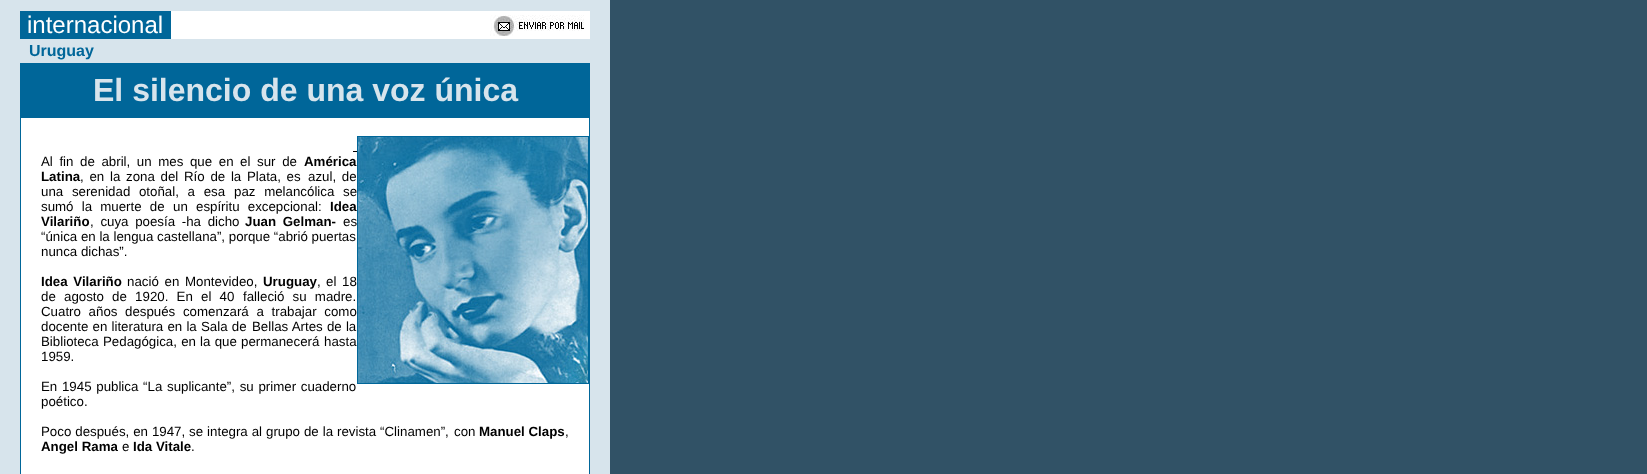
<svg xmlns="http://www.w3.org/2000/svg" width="1647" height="474">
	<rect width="100%" height="100%" fill="#315266" />
	<rect x="0" y="0" width="610" height="474" fill="#D7E4EC" />
	<rect x="20" y="11" width="151" height="28" fill="#006699" />
	<text x="27" y="33" font-family="Liberation Sans" font-size="24" fill="#FFFFFF">internacional</text>
	<rect x="171" y="11" width="419" height="28" fill="#FFFFFF" />
	<image x="490" y="15" width="94" height="21" href="assets/img1.png" />
	<text x="29" y="56" font-family="Liberation Sans" font-size="16" font-weight="700" fill="#006699">Uruguay</text>
	<rect x="20" y="63" width="570" height="411" fill="#006699" />
	<text x="93" y="101" font-family="Liberation Sans" font-size="32" font-weight="700" fill="#D7E4EC">El silencio de una voz única</text>
	<rect x="21" y="118" width="568" height="356" fill="#FFFFFF" />
	<rect x="353" y="151" width="4" height="1" fill="#000000" />
	<rect x="357" y="136" width="232" height="248" fill="#006699" />
	<image x="358" y="137" width="230" height="246" href="assets/img2.png" />
	<text x="41" y="166" word-spacing="2.9" font-family="Liberation Sans" font-size="13.3" fill="#000000">Al fin de abril, un mes que en el sur de</text>
	<g font-family="Liberation Sans" font-size="13.3" font-weight="700" fill="#000000">
		<text x="304" y="166">América</text>
		<text x="41" y="181">Latina</text>
	</g>
	<g font-family="Liberation Sans" font-size="13.3" fill="#000000">
		<text x="80" y="181" word-spacing="2">, en</text>
		<text x="110" y="181" word-spacing="2">la zona del Río de la Plata, es</text>
		<text x="308" y="181" word-spacing="2">azul, de</text>
		<text x="41" y="196" word-spacing="5">una serenidad otoñal, a esa</text>
		<text x="234" y="196" word-spacing="5">paz melancólica se</text>
		<text x="41" y="211" word-spacing="4.5">sumó la muerte de</text>
		<text x="173" y="211" word-spacing="4.5">un espíritu excepcional:</text>
	</g>
	<g font-family="Liberation Sans" font-size="13.3" font-weight="700" fill="#000000">
		<text x="330" y="211">Idea</text>
		<text x="41" y="226">Vilariño</text>
	</g>
	<text x="90" y="226" word-spacing="3" font-family="Liberation Sans" font-size="13.3" fill="#000000">, cuya poesía -ha dicho</text>
	<text x="245" y="226" word-spacing="3" font-family="Liberation Sans" font-size="13.3" font-weight="700" fill="#000000">Juan Gelman-</text>
	<g font-family="Liberation Sans" font-size="13.3" fill="#000000">
		<text x="343" y="226">es</text>
		<text x="41" y="241">“única en la lengua castellana”, porque “abrió puertas</text>
		<text x="41" y="256">nunca dichas”.</text>
	</g>
	<text x="41" y="286" word-spacing="2" font-family="Liberation Sans" font-size="13.3" font-weight="700" fill="#000000">Idea Vilariño</text>
	<text x="127" y="286" word-spacing="2" font-family="Liberation Sans" font-size="13.3" fill="#000000">nació en Montevideo,</text>
	<text x="263" y="286" font-family="Liberation Sans" font-size="13.3" font-weight="700" fill="#000000">Uruguay</text>
	<g font-family="Liberation Sans" font-size="13.3" fill="#000000">
		<text x="317" y="286">,</text>
		<text x="326" y="286" word-spacing="2">el 18</text>
		<text x="41" y="301" word-spacing="4.5">de agosto de 1920. En el 40</text>
		<text x="243" y="301" word-spacing="4.5">falleció su madre.</text>
		<text x="41" y="316" word-spacing="4">Cuatro años</text>
		<text x="125" y="316" word-spacing="4">después comenzará a trabajar como</text>
		<text x="41" y="331" word-spacing="0.5">docente en literatura en la Sala de</text>
		<text x="252" y="331" word-spacing="0.5">Bellas Artes de la</text>
		<text x="41" y="346">Biblioteca</text>
		<text x="103" y="346" word-spacing="0.5">Pedagógica, en la que permanecerá</text>
		<text x="324" y="346">hasta</text>
		<text x="41" y="361">1959.</text>
		<text x="41" y="391" word-spacing="1">En 1945 publica “La suplicante”, su primer cuaderno</text>
		<text x="41" y="406">poético.</text>
		<text x="41" y="436" word-spacing="0.25">Poco después, en 1947, se integra al grupo de la revista “Clinamen”,</text>
		<text x="454" y="436">con</text>
	</g>
	<text x="479" y="436" font-family="Liberation Sans" font-size="13.3" font-weight="700" fill="#000000">Manuel Claps</text>
	<text x="565" y="436" font-family="Liberation Sans" font-size="13.3" fill="#000000">,</text>
	<text x="41" y="451" font-family="Liberation Sans" font-size="13.3" font-weight="700" fill="#000000">Angel Rama</text>
	<text x="122" y="451" font-family="Liberation Sans" font-size="13.3" fill="#000000">e</text>
	<text x="133" y="451" font-family="Liberation Sans" font-size="13.3" font-weight="700" fill="#000000">Ida Vitale</text>
	<text x="191" y="451" font-family="Liberation Sans" font-size="13.3" fill="#000000">.</text>
</svg>
